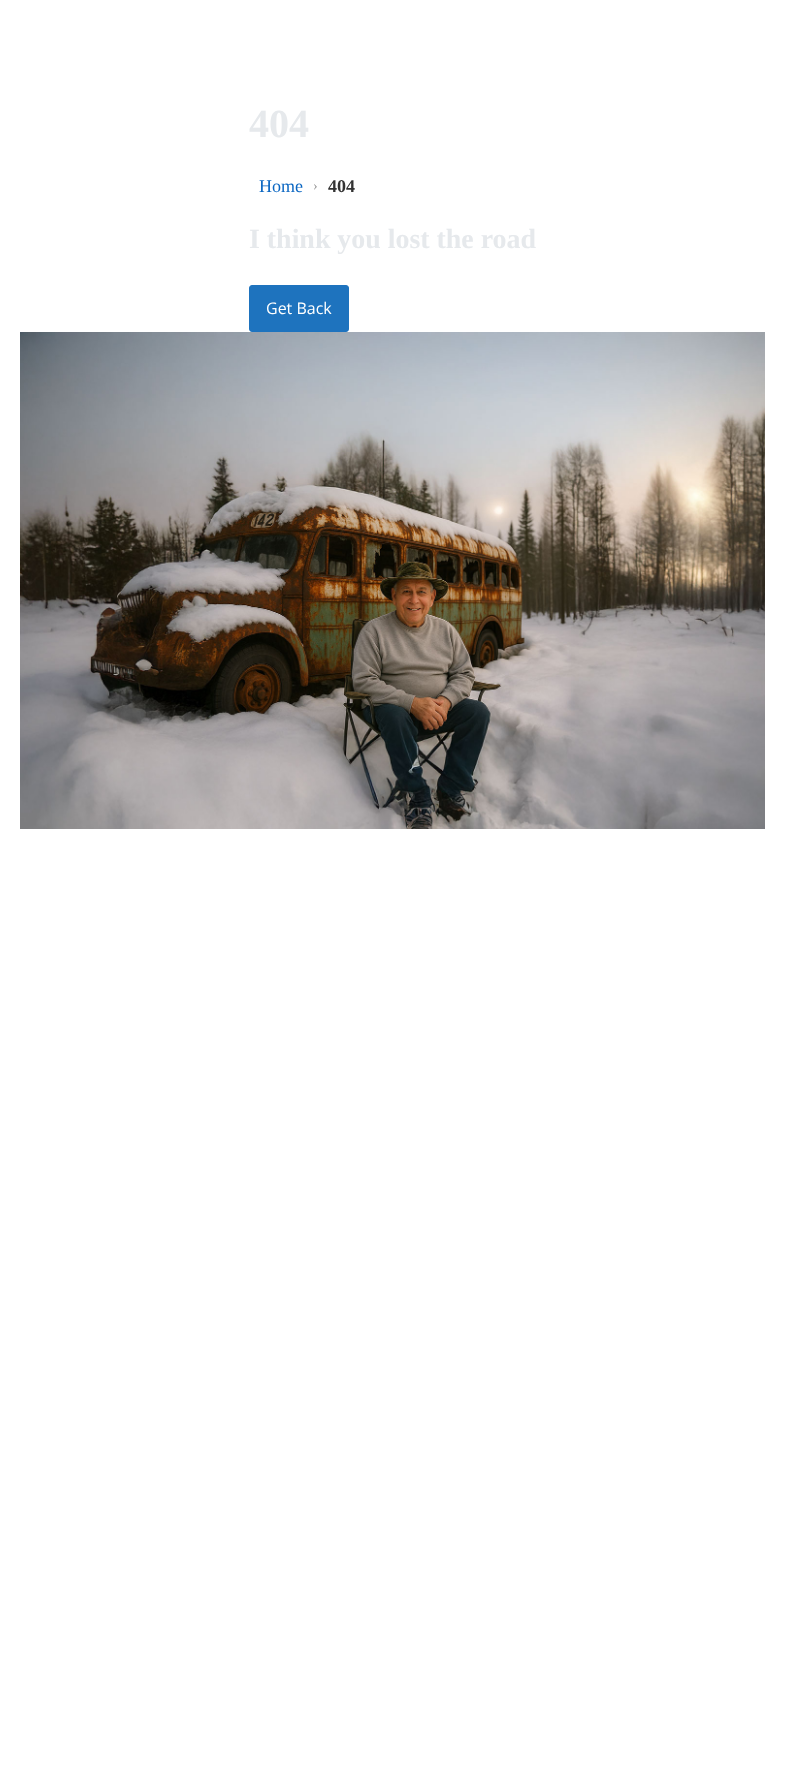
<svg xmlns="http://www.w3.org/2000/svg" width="785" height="1773">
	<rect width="100%" height="100%" fill="#FFFFFF" />
	<text x="249" y="137" font-family="Liberation Serif" font-size="40" font-weight="700" fill="#E6E9EC">404</text>
	<text x="259" y="192" font-family="Liberation Serif" font-size="18" fill="#0A66C2">Home</text>
	<text x="313" y="190" font-family="Liberation Serif" font-size="14" fill="#999999">›</text>
	<text x="328" y="192" font-family="Liberation Serif" font-size="18" font-weight="700" fill="#333333">404</text>
	<text x="249" y="248" font-family="Liberation Serif" font-size="27.9" font-weight="700" fill="#E6E9EC">I think you lost the road</text>
	<rect x="249.5" y="285.5" width="99" height="46" rx="2.5" fill="#1E73BE" stroke="#1E73BE" />
	<text x="266" y="314" font-family="Open Sans" font-size="16" fill="#FFFFFF">Get Back</text>
	<image x="20" y="332" width="745" height="497" href="assets/img1.png" />
</svg>
